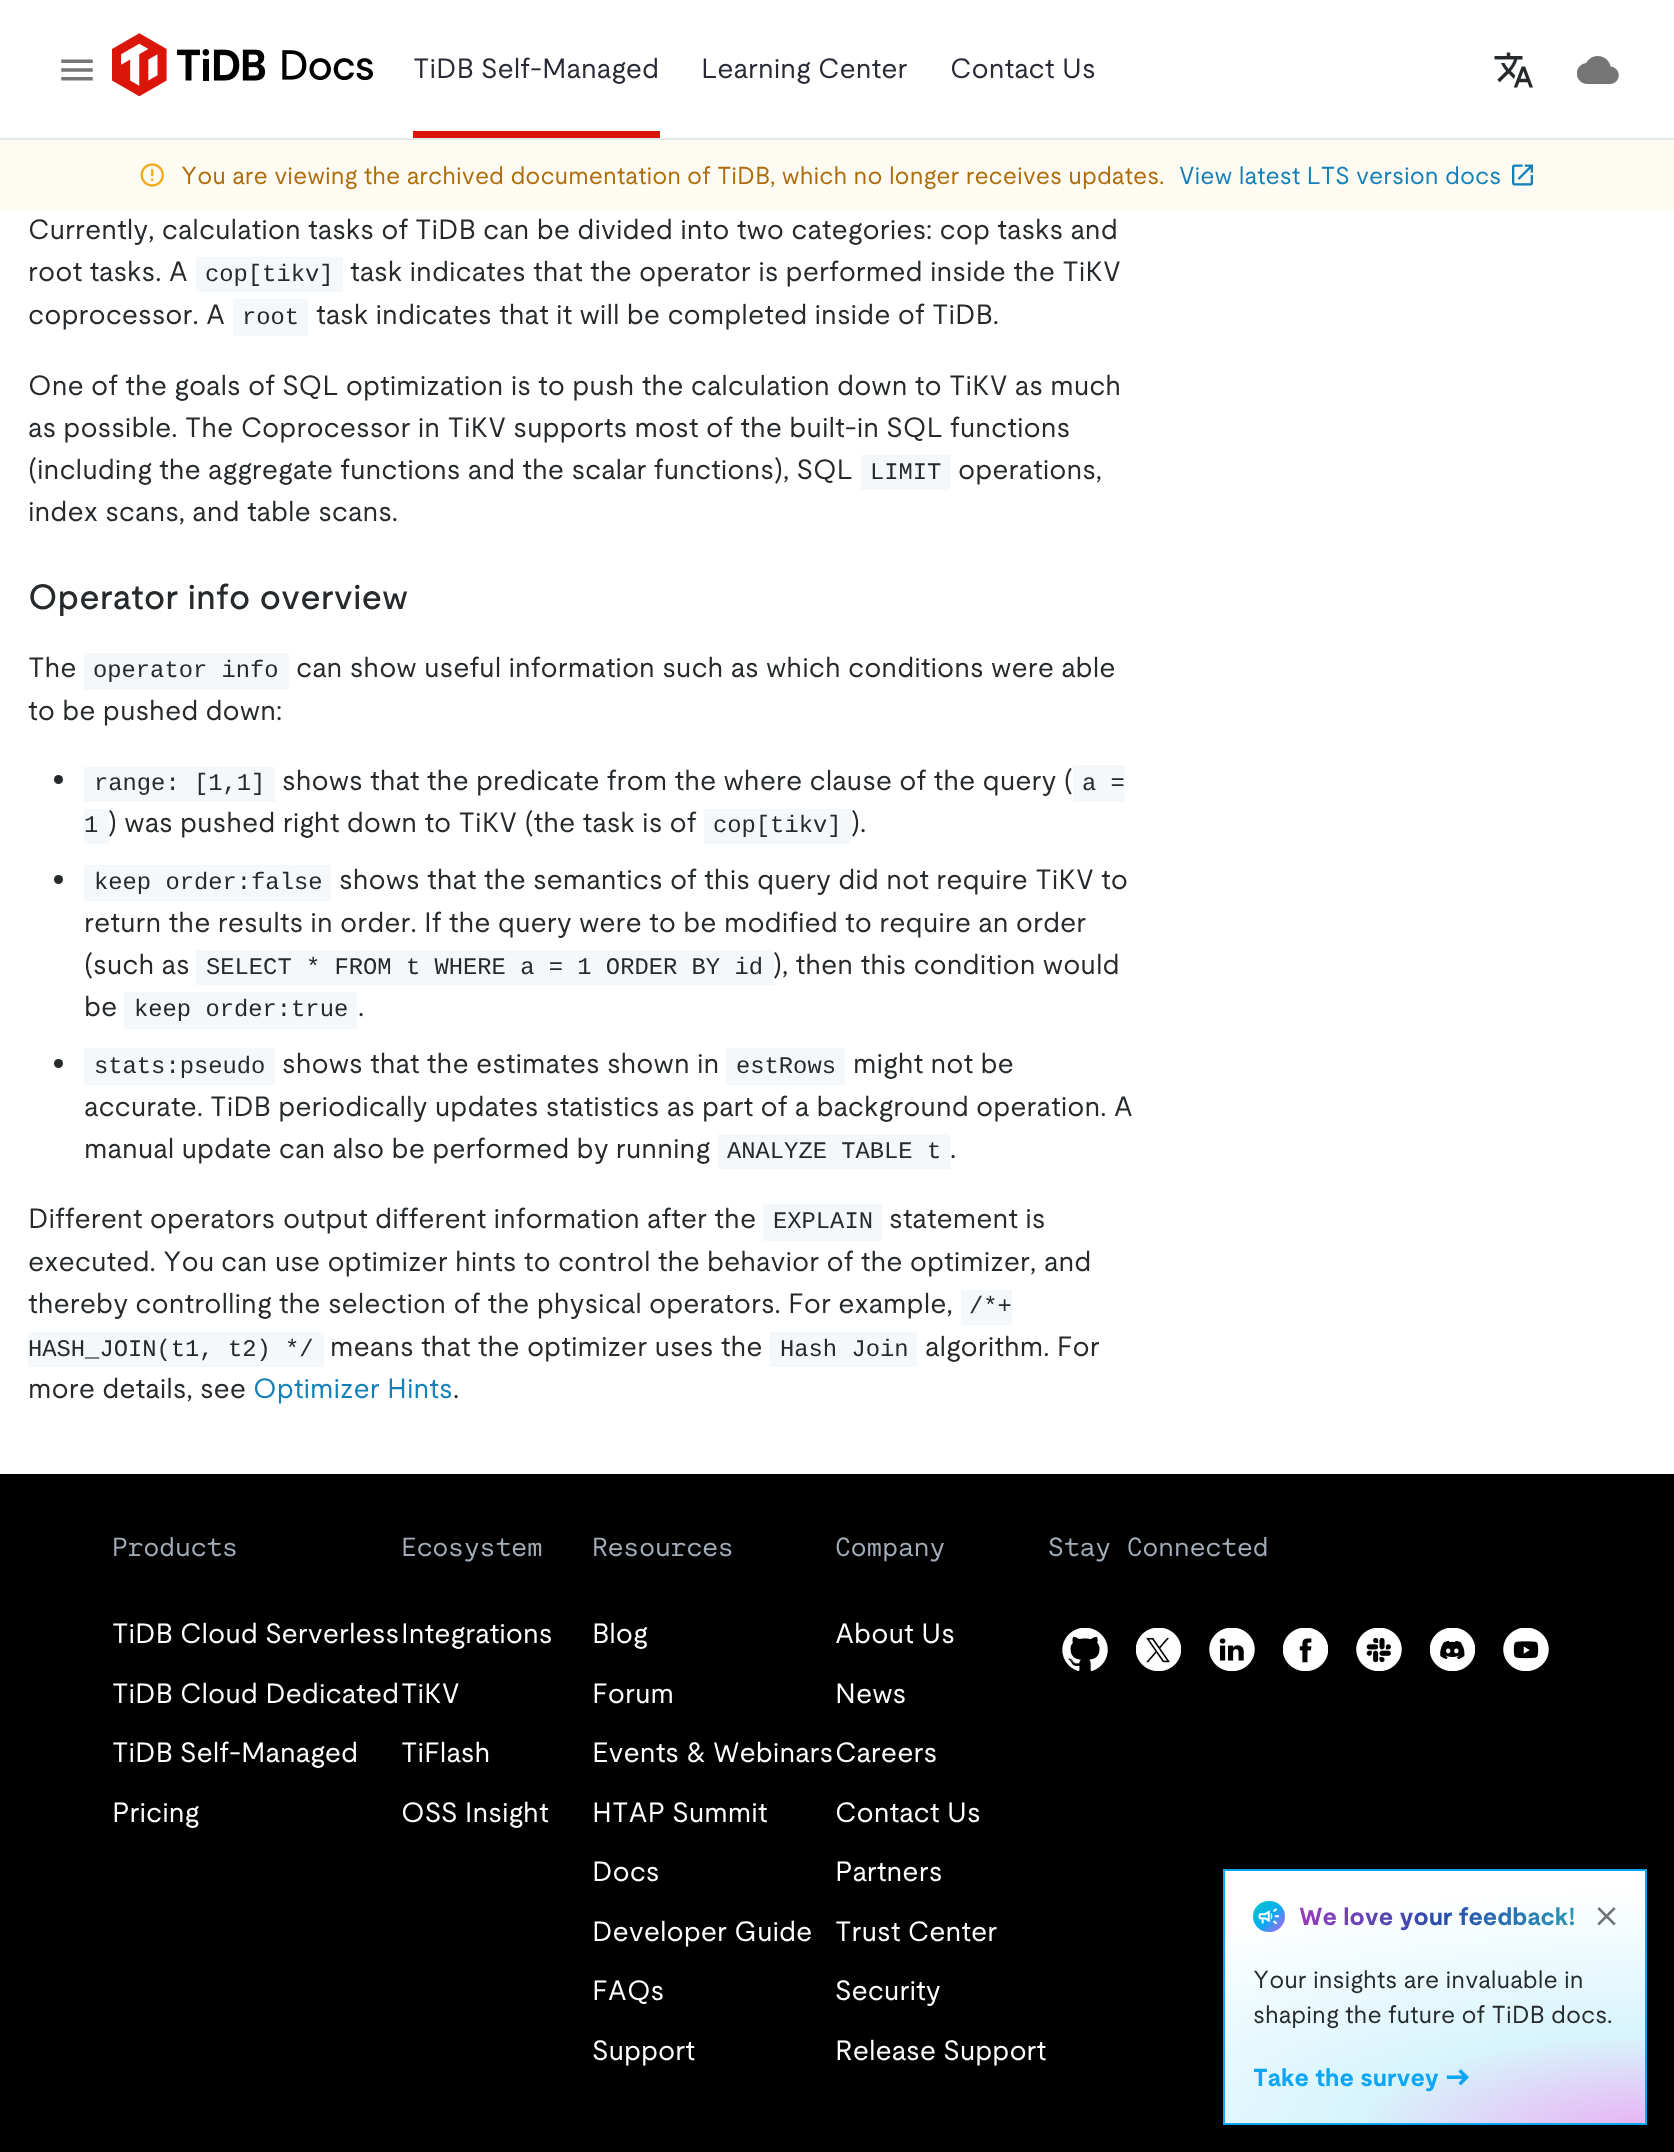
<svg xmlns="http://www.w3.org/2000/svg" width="1674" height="2152">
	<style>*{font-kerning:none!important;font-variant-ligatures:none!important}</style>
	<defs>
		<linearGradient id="g1" gradientUnits="userSpaceOnUse" x1="1299" y1="1916" x2="1582" y2="1916"><stop offset="0" stop-color="#9A3CBB" /><stop offset="0.5" stop-color="#284DAB" /><stop offset="1" stop-color="#2D9BB7" /></linearGradient>
		<radialGradient id="g2" gradientUnits="userSpaceOnUse" cx="0" cy="0" r="1" gradientTransform="matrix(761 0 0 244 1652 2131)"><stop offset="0" stop-color="#E9B0F3" /><stop offset="0.39" stop-color="#D7F4FC" /><stop offset="1" stop-color="#FFFFFF" /></radialGradient>
		<linearGradient id="g3" gradientUnits="userSpaceOnUse" x1="1253" y1="1901" x2="1285" y2="1932"><stop offset="0" stop-color="#0FC7C7" /><stop offset="0.5" stop-color="#00AEEF" /><stop offset="1" stop-color="#CA5AF0" /></linearGradient>
	</defs>
	<rect width="100%" height="100%" fill="#FFFFFF" />
	<rect x="0" y="138" width="1674" height="2" fill="#E3E8EA" />
	<image x="61" y="59" width="32" height="22" href="assets/img1.png" />
	<image x="112" y="33" width="261" height="63" href="assets/img2.png" />
	<rect x="413" y="131" width="247" height="7" fill="#DC150B" />
	<g font-family="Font" font-size="28" fill="#282A36">
		<text x="413" y="78">TiDB Self-Managed</text>
		<text x="701" y="78">Learning Center</text>
		<text x="950" y="78">Contact Us</text>
	</g>
	<image x="1494" y="52" width="39" height="36" href="assets/img3.png" />
	<image x="1577" y="56" width="42" height="28" href="assets/img4.png" />
	<rect x="0" y="140" width="1674" height="70" fill="#FEFBF3" />
	<image x="140" y="163" width="24" height="24" href="assets/img5.png" />
	<text x="181" y="184" font-family="Font" font-size="24.5" fill="#AE6D0C">You are viewing the archived documentation</text>
	<text x="687" y="184" font-family="Font" font-size="24.5" fill="#AE6D0C">of TiDB, which no longer receives updates.</text>
	<text x="1179" y="184" font-family="Font" font-size="24.5" fill="#1480B8">View latest LTS</text>
	<text x="1356" y="184" font-family="Font" font-size="24.5" fill="#1480B8">version docs</text>
	<image x="1512" y="164" width="21" height="22" href="assets/img6.png" />
	<g font-family="Font" font-size="28" fill="#262A2C">
		<text x="28" y="239">Currently, calculation tasks of</text>
		<text x="415" y="239">TiDB can be divided into two categories: cop tasks and</text>
		<text x="28" y="281">root tasks. A</text>
	</g>
	<rect x="196" y="257" width="147" height="35" fill="#F5F8FA" />
	<text x="205" y="281" font-family="Liberation Mono" font-size="23.8" fill="#262A2C">cop[tikv]</text>
	<g font-family="Font" font-size="28" fill="#262A2C">
		<text x="350" y="281">task indicates that the operator is performed inside the TiKV</text>
		<text x="28" y="324">coprocessor. A</text>
	</g>
	<rect x="233" y="299" width="75" height="37" fill="#F5F8FA" />
	<text x="242" y="324" font-family="Liberation Mono" font-size="23.8" fill="#262A2C">root</text>
	<g font-family="Font" font-size="28" fill="#262A2C">
		<text x="316" y="324">task indicates that it will be completed inside of TiDB.</text>
		<text x="28" y="395">One of the goals of SQL optimization is to push the calculation down to TiKV as much</text>
		<text x="28" y="437">as possible. The Coprocessor in TiKV supports most</text>
		<text x="706" y="437">of the built-in SQL functions</text>
		<text x="28" y="479">(including the aggregate functions and the scalar functions), SQL</text>
	</g>
	<rect x="861" y="455" width="89" height="35" fill="#F5F8FA" />
	<text x="870" y="479" font-family="Liberation Mono" font-size="23.8" fill="#262A2C">LIMIT</text>
	<g font-family="Font" font-size="28" fill="#262A2C">
		<text x="958" y="479">operations,</text>
		<text x="28" y="521">index scans, and table scans.</text>
	</g>
	<text x="28" y="609" font-family="Font" font-size="35" font-weight="500" fill="#262A2C">Operator info overview</text>
	<text x="28" y="677" font-family="Font" font-size="28" fill="#262A2C">The</text>
	<rect x="84" y="653" width="205" height="37" fill="#F5F8FA" />
	<text x="93" y="677" font-family="Liberation Mono" font-size="23.8" fill="#262A2C">operator info</text>
	<g font-family="Font" font-size="28" fill="#262A2C">
		<text x="296" y="677">can show useful information such as which conditions were able</text>
		<text x="28" y="720">to be pushed down:</text>
	</g>
	<circle cx="58.5" cy="779.5" r="4.5" fill="#262A2C" />
	<rect x="84" y="767" width="191" height="35" fill="#F5F8FA" />
	<text x="94" y="790" font-family="Liberation Mono" font-size="23.8" fill="#262A2C">range: [1,1]</text>
	<text x="282" y="790" font-family="Font" font-size="28" fill="#262A2C">shows that the predicate from the where clause of the query (</text>
	<rect x="1073" y="765" width="52" height="37" fill="#F5F8FA" />
	<text x="1082" y="790" font-family="Liberation Mono" font-size="23.8" fill="#262A2C">a =</text>
	<rect x="84" y="809" width="25" height="35" fill="#F5F8FA" />
	<text x="84" y="832" font-family="Liberation Mono" font-size="23.8" fill="#262A2C">1</text>
	<text x="108" y="832" font-family="Font" font-size="28" fill="#262A2C">) was pushed right down to TiKV (the task is of</text>
	<rect x="704" y="809" width="147" height="35" fill="#F5F8FA" />
	<text x="713" y="832" font-family="Liberation Mono" font-size="23.8" fill="#262A2C">cop[tikv]</text>
	<text x="851" y="832" font-family="Font" font-size="28" fill="#262A2C">).</text>
	<circle cx="58.5" cy="879.5" r="4.5" fill="#262A2C" />
	<rect x="84" y="865" width="247" height="36" fill="#F5F8FA" />
	<text x="94" y="889" font-family="Liberation Mono" font-size="23.8" fill="#262A2C">keep order:false</text>
	<g font-family="Font" font-size="28" fill="#262A2C">
		<text x="339" y="889">shows that the semantics of this query did not require TiKV to</text>
		<text x="84" y="932">return the results in order.</text>
		<text x="424" y="932">If the query were to be modified to require an order</text>
		<text x="84" y="974">(such as</text>
	</g>
	<rect x="196" y="950" width="578" height="35" fill="#F5F8FA" />
	<text x="206" y="974" font-family="Liberation Mono" font-size="23.8" fill="#262A2C">SELECT * FROM t WHERE a = 1 ORDER BY id</text>
	<g font-family="Font" font-size="28" fill="#262A2C">
		<text x="773" y="974">), then this condition would</text>
		<text x="84" y="1016">be</text>
	</g>
	<rect x="124" y="992" width="233" height="37" fill="#F5F8FA" />
	<text x="134" y="1016" font-family="Liberation Mono" font-size="23.8" fill="#262A2C">keep order:true</text>
	<text x="358" y="1016" font-family="Font" font-size="28" fill="#262A2C">.</text>
	<circle cx="58.5" cy="1063.5" r="4.5" fill="#262A2C" />
	<rect x="84" y="1048" width="191" height="37" fill="#F5F8FA" />
	<text x="94" y="1073" font-family="Liberation Mono" font-size="23.8" fill="#262A2C">stats:pseudo</text>
	<text x="282" y="1073" font-family="Font" font-size="28" fill="#262A2C">shows that the estimates shown in</text>
	<rect x="726" y="1048" width="119" height="37" fill="#F5F8FA" />
	<text x="736" y="1073" font-family="Liberation Mono" font-size="23.8" fill="#262A2C">estRows</text>
	<g font-family="Font" font-size="28" fill="#262A2C">
		<text x="853" y="1073">might not be</text>
		<text x="84" y="1116">accurate. TiDB periodically updates statistics as part of a background</text>
		<text x="976" y="1116">operation. A</text>
		<text x="84" y="1158">manual update can also be performed by running</text>
	</g>
	<rect x="718" y="1134" width="232" height="35" fill="#F5F8FA" />
	<text x="727" y="1158" font-family="Liberation Mono" font-size="23.8" fill="#262A2C">ANALYZE TABLE t</text>
	<g font-family="Font" font-size="28" fill="#262A2C">
		<text x="950" y="1158">.</text>
		<text x="28" y="1228">Different operators</text>
		<text x="283" y="1228">output different information</text>
		<text x="647" y="1228">after the</text>
	</g>
	<rect x="763" y="1204" width="119" height="37" fill="#F5F8FA" />
	<text x="773" y="1228" font-family="Liberation Mono" font-size="23.8" fill="#262A2C">EXPLAIN</text>
	<g font-family="Font" font-size="28" fill="#262A2C">
		<text x="889" y="1228">statement is</text>
		<text x="28" y="1271">executed. You</text>
		<text x="221" y="1271">can use optimizer hints to control the behavior of the optimizer,</text>
		<text x="1044" y="1271">and</text>
		<text x="28" y="1313">thereby controlling the selection of the physical operators.</text>
		<text x="788" y="1313">For example,</text>
	</g>
	<rect x="961" y="1290" width="51" height="35" fill="#F5F8FA" />
	<text x="969" y="1313" font-family="Liberation Mono" font-size="23.8" fill="#262A2C">/*+</text>
	<rect x="28" y="1332" width="296" height="35" fill="#F5F8FA" />
	<text x="28" y="1356" font-family="Liberation Mono" font-size="23.8" fill="#262A2C">HASH_JOIN(t1, t2) */</text>
	<text x="330" y="1356" font-family="Font" font-size="28" fill="#262A2C">means that the optimizer uses the</text>
	<rect x="770" y="1332" width="147" height="35" fill="#F5F8FA" />
	<text x="780" y="1356" font-family="Liberation Mono" font-size="23.8" fill="#262A2C">Hash Join</text>
	<g font-family="Font" font-size="28" fill="#262A2C">
		<text x="925" y="1356">algorithm. For</text>
		<text x="28" y="1398">more details, see</text>
	</g>
	<text x="253" y="1398" font-family="Font" font-size="28" fill="#1480B8">Optimizer Hints</text>
	<text x="453" y="1398" font-family="Font" font-size="28" fill="#262A2C">.</text>
	<rect x="0" y="1474" width="1674" height="678" fill="#000000" />
	<rect x="1225" y="1871" width="420" height="252" fill="url(#g2)" />
	<rect x="1224" y="1870" width="422" height="254" fill="none" stroke="#0CA6F2" stroke-width="2" />
	<rect x="1253" y="1901" width="32" height="31" rx="15.5" fill="url(#g3)" />
	<image x="1258" y="1908" width="21" height="17" href="assets/img7.png" />
	<text x="1299" y="1925" font-family="Font" font-size="24.5" font-weight="700" fill="url(#g1)">We love your feedback!</text>
	<image x="1597" y="1907" width="19" height="19" href="assets/img8.png" />
	<g font-family="Font" font-size="24.5" fill="#262A2C">
		<text x="1253" y="1988">Your insights are invaluable</text>
		<text x="1564" y="1988">in</text>
		<text x="1253" y="2023">shaping the future of TiDB docs.</text>
	</g>
	<text x="1253" y="2086" font-family="Font" font-size="24.5" font-weight="700" fill="#0CA6F2">Take the survey</text>
	<image x="1446" y="2069" width="23" height="17" href="assets/img9.png" />
	<text x="112" y="1556" font-family="'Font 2'" font-size="26.25" fill="#A2ADB9">Products</text>
	<g font-family="Font" font-size="28" fill="#FFFFFF">
		<text x="112" y="1643">TiDB Cloud Serverless</text>
		<text x="112" y="1703">TiDB Cloud Dedicated</text>
		<text x="112" y="1762">TiDB Self-Managed</text>
		<text x="112" y="1822">Pricing</text>
	</g>
	<text x="401" y="1556" font-family="'Font 2'" font-size="26.25" fill="#A2ADB9">Ecosystem</text>
	<g font-family="Font" font-size="28" fill="#FFFFFF">
		<text x="401" y="1643">Integrations</text>
		<text x="401" y="1703">TiKV</text>
		<text x="401" y="1762">TiFlash</text>
		<text x="401" y="1822">OSS Insight</text>
	</g>
	<text x="592" y="1556" font-family="'Font 2'" font-size="26.25" fill="#A2ADB9">Resources</text>
	<g font-family="Font" font-size="28" fill="#FFFFFF">
		<text x="592" y="1643">Blog</text>
		<text x="592" y="1703">Forum</text>
		<text x="592" y="1762">Events &amp; Webinars</text>
		<text x="592" y="1822">HTAP Summit</text>
		<text x="592" y="1881">Docs</text>
		<text x="592" y="1941">Developer Guide</text>
		<text x="592" y="2000">FAQs</text>
		<text x="592" y="2060">Support</text>
	</g>
	<text x="835" y="1556" font-family="'Font 2'" font-size="26.25" fill="#A2ADB9">Company</text>
	<g font-family="Font" font-size="28" fill="#FFFFFF">
		<text x="835" y="1643">About Us</text>
		<text x="835" y="1703">News</text>
		<text x="835" y="1762">Careers</text>
		<text x="835" y="1822">Contact Us</text>
		<text x="835" y="1881">Partners</text>
		<text x="835" y="1941">Trust Center</text>
		<text x="835" y="2000">Security</text>
		<text x="835" y="2060">Release Support</text>
	</g>
	<text x="1048" y="1556" font-family="'Font 2'" font-size="26.25" fill="#A2ADB9">Stay Connected</text>
	<image x="1062" y="1628" width="46" height="43" href="assets/img10.png" />
	<image x="1136" y="1628" width="45" height="43" href="assets/img11.png" />
	<image x="1209" y="1628" width="46" height="43" href="assets/img12.png" />
	<image x="1283" y="1628" width="45" height="43" href="assets/img13.png" />
	<image x="1356" y="1628" width="46" height="43" href="assets/img14.png" />
	<image x="1430" y="1628" width="45" height="43" href="assets/img15.png" />
	<image x="1503" y="1628" width="46" height="43" href="assets/img16.png" />
</svg>
